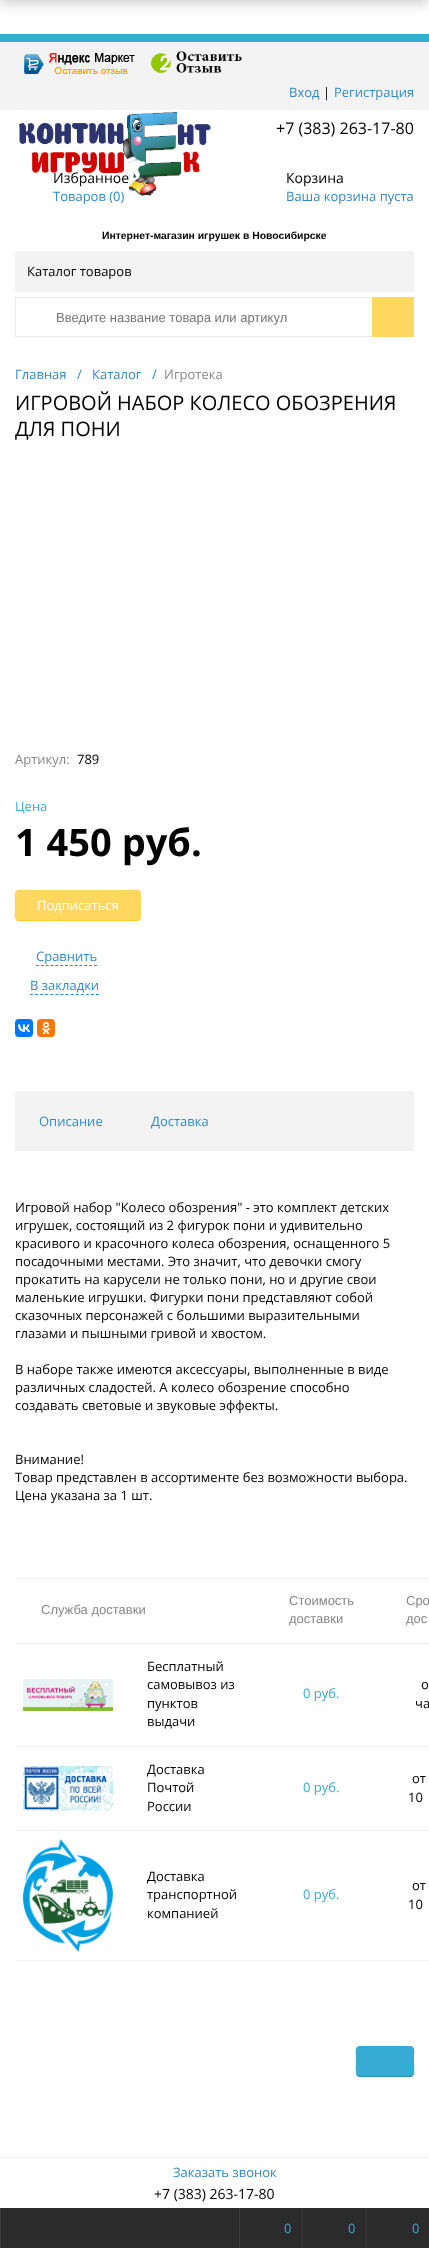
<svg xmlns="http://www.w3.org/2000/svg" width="429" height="2248">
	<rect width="100%" height="100%" fill="#FFFFFF" />
	<rect x="0" y="-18" width="429" height="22" fill="#000000" fill-opacity="0.18" filter="blur(6px)" />
	<rect x="0" y="42" width="429" height="68" fill="#F3F3F3" />
	<rect x="0" y="34" width="429" height="8" fill="#36ACD4" />
	<image x="24" y="53" width="111" height="21" href="assets/img1.png" />
	<image x="150" y="51" width="92" height="23" href="assets/img2.png" />
	<text x="289" y="97" font-family="Open Sans" font-size="13" fill="#308AC4">Вход</text>
	<text x="323" y="97" font-family="Open Sans" font-size="13" fill="#000000">|</text>
	<text x="334" y="97" font-family="Open Sans" font-size="13" fill="#308AC4">Регистрация</text>
	<image x="18" y="111" width="193" height="86" href="assets/img3.png" />
	<text x="276" y="134" font-family="Open Sans" font-size="16" fill="#000000">+7 (383) 263-17-80</text>
	<text x="53" y="183" font-family="Open Sans" font-size="14" fill="#000000">Избранное</text>
	<text x="53" y="201" font-family="Open Sans" font-size="13" fill="#308AC4">Товаров (0)</text>
	<text x="286" y="183" font-family="Open Sans" font-size="14" fill="#000000">Корзина</text>
	<text x="286" y="201" font-family="Open Sans" font-size="13" fill="#308AC4">Ваша корзина пуста</text>
	<text x="102" y="239" font-family="Liberation Sans" font-size="10.4" font-weight="700" fill="#000000">Интернет-магазин игрушек в Новосибирске</text>
	<rect x="15" y="251" width="399" height="41" fill="#F3F3F3" />
	<text x="27" y="276" font-family="Open Sans" font-size="13" fill="#000000">Каталог товаров</text>
	<rect x="15" y="297" width="357" height="1" fill="#EBEBEB" />
	<rect x="15" y="336" width="357" height="1" fill="#EBEBEB" />
	<rect x="15" y="297" width="1" height="40" fill="#EBEBEB" />
	<rect x="372" y="297" width="42" height="40" fill="#FED75E" />
	<text x="56" y="322" font-family="Liberation Sans" font-size="13" fill="#757575">Введите название товара или артикул</text>
	<g font-family="Open Sans" font-size="13" fill="#308AC4">
		<text x="15" y="379">Главная</text>
		<text x="77" y="379">/</text>
		<text x="92" y="379">Каталог</text>
		<text x="152" y="379">/</text>
	</g>
	<text x="164" y="379" font-family="Open Sans" font-size="13" fill="#878787">Игротека</text>
	<g font-family="Open Sans" font-size="20" fill="#000000">
		<text x="15" y="410">ИГРОВОЙ НАБОР КОЛЕСО ОБОЗРЕНИЯ</text>
		<text x="15" y="436">ДЛЯ ПОНИ</text>
	</g>
	<text x="15" y="764" font-family="Open Sans" font-size="13" fill="#878787">Артикул:</text>
	<text x="77" y="764" font-family="Open Sans" font-size="13" fill="#000000">789</text>
	<text x="15" y="811" font-family="Open Sans" font-size="13" fill="#36ACD4">Цена</text>
	<text x="15" y="856" font-family="Open Sans" font-size="38" font-weight="700" fill="#000000">1 450 руб.</text>
	<rect x="15" y="890" width="126" height="31" rx="4" fill="#FED75E" />
	<path d="M139.5 919.5C139 920 138 920.5 137 920.5H19C18 920.5 17 920 16.5 919.5" fill="none" stroke="#FECA2B" />
	<path d="M16.5 919.5C14 917 15.5 912 15.5 909.5C15.5 885.5 12 890.5 38.5 890.5H117.5C144 890.5 140.5 885.5 140.5 909.5C140.5 912 142 917 139.5 919.5" fill="none" stroke="#FED75E" />
	<text x="37" y="910" font-family="Open Sans" font-size="13" fill="#FFFFFF">Подписаться</text>
	<text x="36" y="961" font-family="Open Sans" font-size="13" fill="#308AC4">Сравнить</text>
	<path d="M36 965.5H97" fill="none" stroke="#308AC4" stroke-dasharray="3 1.83" />
	<text x="30" y="990" font-family="Open Sans" font-size="13" fill="#308AC4">В закладки</text>
	<path d="M30 994.5H99" fill="none" stroke="#308AC4" stroke-dasharray="3 2.08" />
	<rect x="15" y="1019" width="18" height="18" rx="4" fill="#0077FF" />
	<image x="18" y="1024" width="12" height="8" href="assets/img4.png" />
	<rect x="37" y="1019" width="18" height="18" rx="4" fill="#FF7700" />
	<image x="42" y="1022" width="8" height="12" href="assets/img5.png" />
	<rect x="15" y="1091" width="399" height="60" fill="#F3F3F3" />
	<g font-family="Open Sans" font-size="13" fill="#308AC4">
		<text x="39" y="1126">Описание</text>
		<text x="151" y="1126">Доставка</text>
	</g>
	<g font-family="Open Sans" font-size="13" fill="#000000">
		<text x="15" y="1212">Игровой набор "Колесо обозрения" - это комплект детских</text>
		<text x="15" y="1230">игрушек, состоящий из 2 фигурок пони и удивительно</text>
		<text x="15" y="1248">красивого и красочного колеса обозрения, оснащенного 5</text>
		<text x="15" y="1266">посадочными местами. Это значит, что девочки смогу</text>
		<text x="15" y="1284">прокатить на карусели не только пони, но и другие свои</text>
		<text x="15" y="1302">маленькие игрушки. Фигурки пони представляют собой</text>
		<text x="15" y="1320">сказочных персонажей с большими выразительными</text>
		<text x="15" y="1338">глазами и пышными гривой и хвостом.</text>
		<text x="15" y="1374">В наборе также имеются аксессуары, выполненные в виде</text>
		<text x="15" y="1392">различных сладостей. А колесо обозрение способно</text>
		<text x="15" y="1410">создавать световые и звуковые эффекты.</text>
		<text x="15" y="1464">Внимание!</text>
		<text x="15" y="1482">Товар представлен в ассортименте без возможности выбора.</text>
		<text x="15" y="1500">Цена указана за 1 шт.</text>
	</g>
	<g font-family="Liberation Sans" font-size="13" fill="#878787">
		<text x="41" y="1614">Служба доставки</text>
		<text x="289" y="1605">Стоимость</text>
		<text x="289" y="1623">доставки</text>
	</g>
	<rect x="15" y="1578" width="414" height="1" fill="#F2F2F2" />
	<rect x="15" y="1643" width="414" height="1" fill="#F2F2F2" />
	<g font-family="Liberation Sans" font-size="13" fill="#878787">
		<text x="406" y="1605">Сро</text>
		<text x="406" y="1623">дос</text>
	</g>
	<image x="23" y="1679" width="90" height="32" href="assets/img6.png" />
	<g font-family="Open Sans" font-size="13" fill="#000000">
		<text x="147" y="1671">Бесплатный</text>
		<text x="147" y="1689">самовывоз из</text>
		<text x="147" y="1708">пунктов</text>
		<text x="147" y="1726">выдачи</text>
	</g>
	<text x="303" y="1698" font-family="Open Sans" font-size="13" fill="#36ACD4">0 руб.</text>
	<rect x="15" y="1746" width="414" height="1" fill="#F2F2F2" />
	<g font-family="Open Sans" font-size="13" fill="#000000">
		<text x="421" y="1689">о</text>
		<text x="415" y="1708">ча</text>
	</g>
	<image x="23" y="1766" width="90" height="45" href="assets/img7.png" />
	<g font-family="Open Sans" font-size="13" fill="#000000">
		<text x="147" y="1774">Доставка</text>
		<text x="147" y="1792">Почтой</text>
		<text x="147" y="1811">России</text>
	</g>
	<text x="303" y="1792" font-family="Open Sans" font-size="13" fill="#36ACD4">0 руб.</text>
	<rect x="15" y="1830" width="414" height="1" fill="#F2F2F2" />
	<g font-family="Open Sans" font-size="13" fill="#000000">
		<text x="412" y="1783">от</text>
		<text x="408" y="1802">10</text>
	</g>
	<image x="23" y="1839" width="90" height="113" href="assets/img8.png" />
	<g font-family="Open Sans" font-size="13" fill="#000000">
		<text x="147" y="1881">Доставка</text>
		<text x="147" y="1899">транспортной</text>
		<text x="147" y="1918">компанией</text>
	</g>
	<text x="303" y="1899" font-family="Open Sans" font-size="13" fill="#36ACD4">0 руб.</text>
	<rect x="15" y="1960" width="414" height="1" fill="#F2F2F2" />
	<g font-family="Open Sans" font-size="13" fill="#000000">
		<text x="412" y="1890">от</text>
		<text x="408" y="1909">10</text>
	</g>
	<rect x="356" y="2046" width="58" height="31" rx="4" fill="#36ACD4" />
	<path d="M412.5 2075.5L410.5 2076.5H359.5L357.5 2075.5" fill="none" stroke="#268EB1" />
	<path d="M357.5 2075.5C355.5 2073 356.5 2064.5 356.5 2061.5C356.5 2046 353.5 2046.5 368.5 2046.5H401.5C416.5 2046.5 413.5 2046 413.5 2061.5C413.5 2064.5 414.5 2073 412.5 2075.5" fill="none" stroke="#36ACD4" />
	<rect x="0" y="2157" width="429" height="1" fill="#F2F2F2" />
	<text x="173" y="2177" font-family="Open Sans" font-size="13" fill="#308AC4">Заказать звонок</text>
	<text x="154" y="2199" font-family="Open Sans" font-size="14" fill="#000000">+7 (383) 263-17-80</text>
	<rect x="1" y="2208" width="428" height="40" fill="#2B2B2B" />
	<rect x="0" y="2208" width="1" height="40" fill="#3C3C3C" />
	<rect x="239" y="2208" width="1" height="40" fill="#3C3C3C" />
	<text x="284" y="2233" font-family="Open Sans" font-size="13" fill="#36ACD4">0</text>
	<rect x="302" y="2208" width="1" height="40" fill="#3C3C3C" />
	<text x="348" y="2233" font-family="Open Sans" font-size="13" fill="#36ACD4">0</text>
	<rect x="366" y="2208" width="1" height="40" fill="#3C3C3C" />
	<text x="412" y="2233" font-family="Open Sans" font-size="13" fill="#36ACD4">0</text>
</svg>
